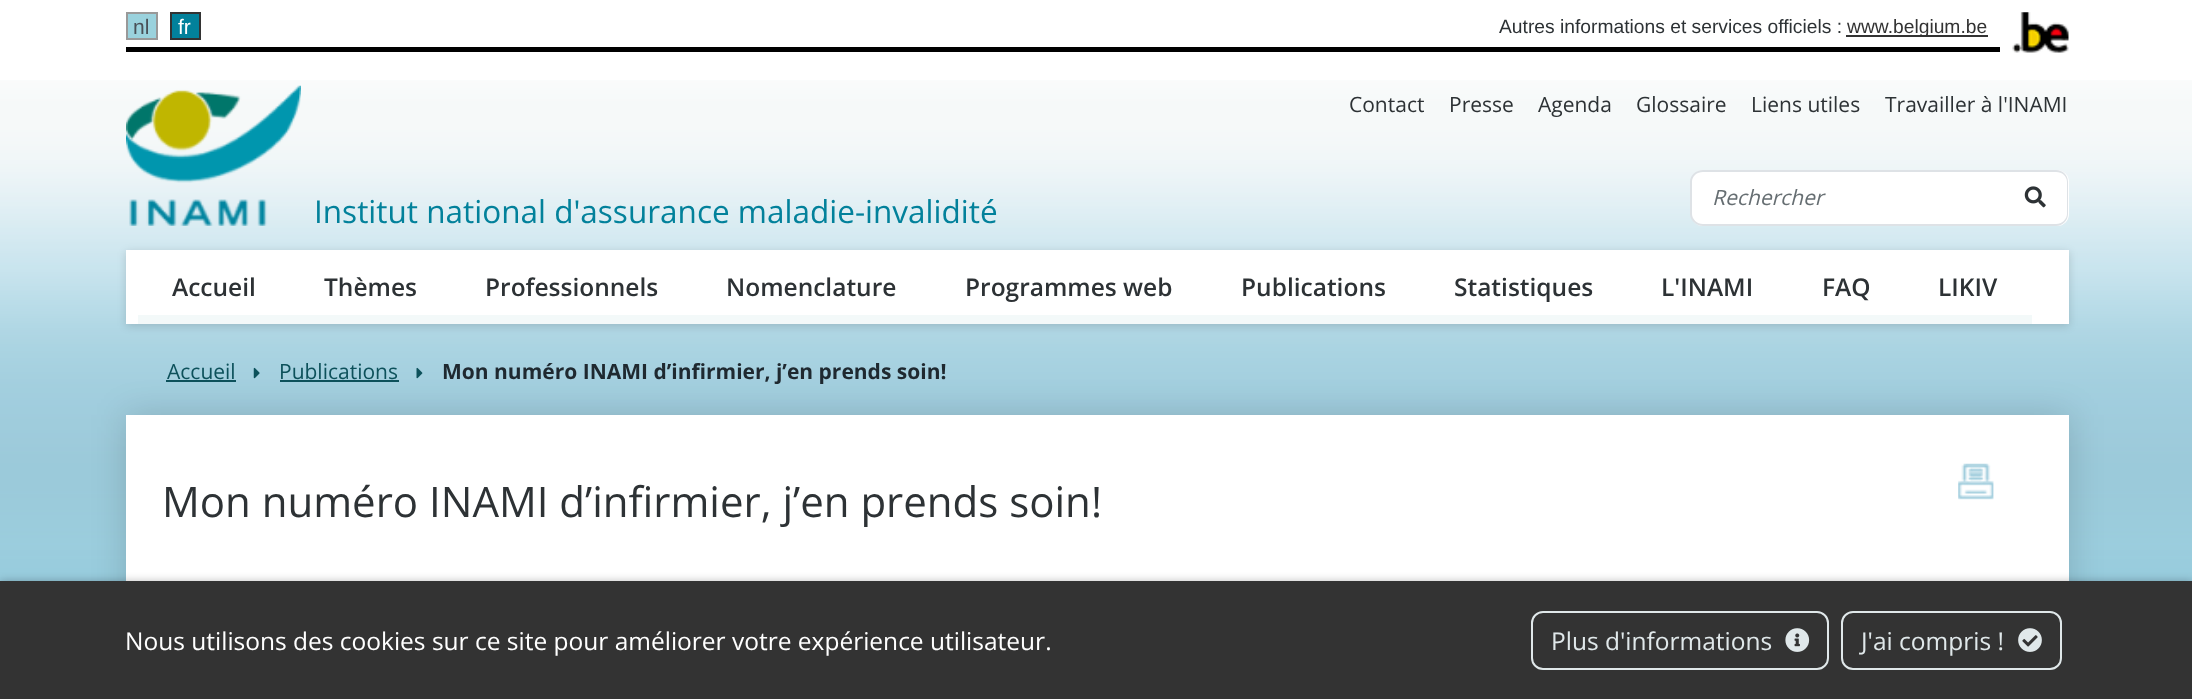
<svg xmlns="http://www.w3.org/2000/svg" width="2192" height="699">
	<rect width="100%" height="100%" fill="#FFFFFF" />
	<image x="0" y="80" width="2192" height="501" href="assets/img1.png" />
	<rect x="126" y="47" width="1874" height="5" fill="#000000" />
	<rect x="127" y="13" width="30" height="26" fill="#9AD2DD" stroke="#999999" stroke-width="2" />
	<text x="133" y="34" font-family="Liberation Sans" font-size="21" fill="#495057">nl</text>
	<rect x="171" y="13" width="29" height="26" fill="#02819B" stroke="#333333" stroke-width="2" />
	<text x="178" y="34" font-family="Liberation Sans" font-size="21" fill="#FFFFFF">fr</text>
	<text x="1499" y="33" font-family="Liberation Sans" font-size="19.25" fill="#2D3235">Autres informations et services officiels :</text>
	<rect x="1846" y="35" width="142" height="2" fill="#333333" />
	<text x="1847" y="33" font-family="Liberation Sans" font-size="19.25" fill="#333333">www.belgium.be</text>
	<image x="2012" y="12" width="57" height="41" href="assets/img2.png" />
	<g font-family="Open Sans" font-size="21" fill="#2D3235">
		<text x="1349" y="112">Contact</text>
		<text x="1449" y="112">Presse</text>
		<text x="1538" y="112">Agenda</text>
		<text x="1636" y="112">Glossaire</text>
		<text x="1751" y="112">Liens utiles</text>
		<text x="1885" y="112">Travailler à l'INAMI</text>
	</g>
	<image x="126" y="85" width="175" height="141" href="assets/img3.png" />
	<text x="314" y="223" font-family="Open Sans" font-size="31.5" fill="#02819B">Institut national d'assurance maladie-invalidité</text>
	<rect x="1691" y="170" width="378" height="56" rx="12" fill="#FFFFFF" />
	<path d="M1703 170H2006V226H1703C1696 226 1690 220 1690 214V182C1690 175 1696 170 1703 170ZM1703 172H2006V224H1703C1697 224 1692 219 1692 214V182C1692 176 1697 172 1703 172Z" fill="#DEE2E6" fill-rule="evenodd" />
	<text x="1712" y="205" font-family="Open Sans" font-size="21" font-style="italic" fill="#666E72">Rechercher</text>
	<path d="M2004 170H2056C2063 170 2068 175 2068 182V214C2068 220 2063 226 2056 226H2004ZM2004 172H2056C2062 172 2067 176 2067 182V214C2067 219 2062 224 2056 224H2004Z" fill="#DEE2E6" fill-rule="evenodd" />
	<image x="2024" y="186" width="22" height="22" href="assets/img4.png" />
	<rect x="126" y="252" width="1943" height="74" fill="#000000" fill-opacity="0.15" filter="blur(4.5px)" />
	<rect x="126" y="250" width="1943" height="74" fill="#FFFFFF" />
	<rect x="138" y="315" width="1894" height="9" fill="#F3F9F9" />
	<g font-family="Open Sans" font-size="24.5" font-weight="600" fill="#2D3235">
		<text x="172" y="296">Accueil</text>
		<text x="324" y="296">Thèmes</text>
		<text x="485" y="296">Professionnels</text>
		<text x="726" y="296">Nomenclature</text>
		<text x="965" y="296">Programmes web</text>
		<text x="1241" y="296">Publications</text>
		<text x="1454" y="296">Statistiques</text>
		<text x="1661" y="296">L'INAMI</text>
		<text x="1822" y="296">FAQ</text>
		<text x="1938" y="296">LIKIV</text>
	</g>
	<rect x="126" y="415" width="1943" height="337" fill="#000000" fill-opacity="0.15" filter="blur(17.5px)" />
	<text x="167" y="379" font-family="Open Sans" font-size="21" fill="#0D515B">Accueil</text>
	<rect x="166" y="380" width="70" height="2" fill="#0D515B" />
	<image x="253" y="367" width="7" height="12" href="assets/img5.png" />
	<text x="279" y="379" font-family="Open Sans" font-size="21" fill="#0D515B">Publications</text>
	<rect x="280" y="380" width="119" height="2" fill="#0D515B" />
	<image x="416" y="367" width="7" height="12" href="assets/img6.png" />
	<text x="442" y="379" font-family="Open Sans" font-size="21" font-weight="700" fill="#1F2930">Mon numéro INAMI d’infirmier, j’en prends soin!</text>
	<rect x="126" y="415" width="1943" height="166" fill="#FFFFFF" />
	<text x="162" y="517" font-family="Open Sans" font-size="42" fill="#2D3235">Mon numéro INAMI d’infirmier, j’en prends soin!</text>
	<image x="1958" y="463" width="36" height="37" href="assets/img7.png" />
	<rect x="0" y="581" width="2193" height="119" fill="#000000" fill-opacity="0.25" filter="blur(4.5px)" />
	<rect x="0" y="581" width="2192" height="118" fill="#333333" />
	<text x="125" y="650" font-family="Open Sans" font-size="24.5" fill="#FFFFFF">Nous utilisons des cookies sur ce site pour améliorer votre expérience utilisateur.</text>
	<rect x="1532" y="612" width="296" height="57" rx="11" fill="none" stroke="#E0E8EA" stroke-width="2" />
	<text x="1551" y="650" font-family="Open Sans" font-size="24.5" fill="#E0E8EA">Plus d'informations</text>
	<image x="1785" y="628" width="25" height="24" href="assets/img8.png" />
	<rect x="1842" y="612" width="219" height="57" rx="11" fill="none" stroke="#E0E8EA" stroke-width="2" />
	<text x="1861" y="650" font-family="Open Sans" font-size="24.5" fill="#E0E8EA">J'ai compris !</text>
	<image x="2018" y="628" width="24" height="24" href="assets/img9.png" />
</svg>
